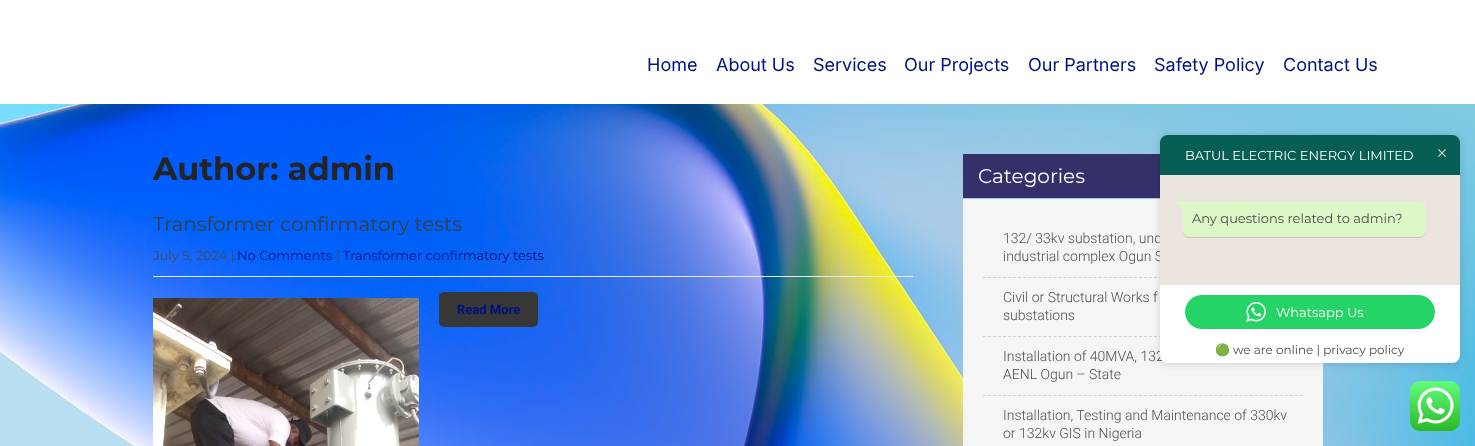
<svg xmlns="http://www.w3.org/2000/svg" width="1475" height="446">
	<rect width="100%" height="100%" fill="#FFFFFF" />
	<image x="0" y="104" width="1475" height="342" href="assets/img1.png" />
	<g font-family="Inter" font-size="18" fill="#00107D">
		<text x="647" y="71">Home</text>
		<text x="716" y="71">About Us</text>
		<text x="813" y="71">Services</text>
		<text x="904" y="71">Our Projects</text>
		<text x="1028" y="71">Our Partners</text>
		<text x="1154" y="71">Safety Policy</text>
		<text x="1283" y="71">Contact Us</text>
	</g>
	<text x="153" y="180" font-family="Montserrat" font-size="32" font-weight="700" fill="#242424">Author: admin</text>
	<text x="153" y="231" font-family="Montserrat" font-size="20" font-weight="100" fill="#3D3D3D">Transformer confirmatory tests</text>
	<rect x="153" y="276" width="760" height="1" fill="#E8E8E8" />
	<text x="153" y="260" font-family="Montserrat" font-size="13" font-weight="100" fill="#4C4C4C">July 5, 2024 |</text>
	<text x="237" y="260" font-family="Montserrat" font-size="13" font-weight="100" fill="#00107D">No Comments</text>
	<text x="336" y="260" font-family="Montserrat" font-size="13" font-weight="100" fill="#4C4C4C">|</text>
	<text x="343" y="260" font-family="Montserrat" font-size="13" font-weight="100" fill="#00107D">Transformer confirmatory tests</text>
	<image x="153" y="298" width="266" height="148" href="assets/img2.png" />
	<rect x="439" y="292" width="99" height="35" rx="5" fill="#383737" />
	<text x="457" y="314" font-family="Roboto" font-size="13" font-weight="700" fill="#00107D">Read More</text>
	<rect x="963" y="154" width="197" height="44" fill="#34316A" />
	<text x="978" y="183" font-family="Montserrat" font-size="20" font-weight="100" fill="#FFFFFF">Categories</text>
	<rect x="963" y="199" width="360" height="247" fill="#F5F5F5" />
	<path d="M983 277.5H1303" fill="none" stroke="#D0CFCF" stroke-dasharray="3 2.03" />
	<g font-family="Roboto" font-size="14" font-weight="300" fill="#4C4C4C">
		<text x="1003" y="243">132/ 33kv substation, und</text>
		<text x="1003" y="261">industrial complex Ogun S</text>
	</g>
	<path d="M983 336.5H1303" fill="none" stroke="#D0CFCF" stroke-dasharray="3 2.03" />
	<g font-family="Roboto" font-size="14" font-weight="300" fill="#4C4C4C">
		<text x="1003" y="302">Civil or Structural Works f</text>
		<text x="1003" y="320">substations</text>
	</g>
	<path d="M983 395.5H1303" fill="none" stroke="#D0CFCF" stroke-dasharray="3 2.03" />
	<g font-family="Roboto" font-size="14" font-weight="300" fill="#4C4C4C">
		<text x="1003" y="361">Installation of 40MVA, 132</text>
		<text x="1003" y="379">AENL Ogun – State</text>
		<text x="1003" y="420">Installation, Testing and Maintenance of 330kv</text>
		<text x="1003" y="438">or 132kv GIS in Nigeria</text>
	</g>
	<rect x="1160" y="136" width="300" height="228" rx="8" fill="#000000" fill-opacity="0.14" filter="blur(4.5px)" />
	<path d="M1168 135H1452C1456.5 135 1460 138.5 1460 143V176H1160V143C1160 138.5 1163.5 135 1168 135Z" fill="#075E54" />
	<text x="1185" y="160" font-family="Montserrat" font-size="13" font-weight="100" fill="#FFFFFF">BATUL ELECTRIC ENERGY LIMITED</text>
	<rect x="1160" y="175" width="300" height="110" fill="#ECE5DD" />
	<rect x="1183" y="202" width="243" height="36" rx="7" fill="#000000" fill-opacity="0.14" filter="blur(0.5px)" />
	<path d="M1183 201H1419C1423 201 1426 204 1426 208V230C1426 234 1423 237 1419 237H1190C1186 237 1183 234 1183 230Z" fill="#DCF8C6" />
	<path d="M1175 201H1183.5V210Z" fill="#DCF8C6" />
	<text x="1192" y="223" font-family="Montserrat" font-size="13" font-weight="100" fill="#4C4C4C">Any questions related to admin?</text>
	<rect x="1160" y="285" width="300" height="52" fill="#FFFFFF" />
	<rect x="1185" y="295" width="250" height="34" rx="17" fill="#25D366" />
	<image x="1246" y="302" width="20" height="20" href="assets/img3.png" />
	<text x="1276" y="317" font-family="Montserrat" font-size="13" font-weight="100" fill="#FFFFFF">Whatsapp Us</text>
	<path d="M1160 337H1460V355C1460 359.5 1456.5 363 1452 363H1168C1163.5 363 1160 359.5 1160 355Z" fill="#FFFFFF" />
	<text x="1215" y="354" font-family="Noto Color Emoji" font-size="12" fill="#4C4C4C">🟢</text>
	<text x="1233" y="354" font-family="Montserrat" font-size="12" font-weight="100" fill="#4C4C4C">we are online | privacy policy</text>
	<image x="1438" y="149" width="8" height="8" href="assets/img4.png" />
	<image x="1410" y="381" width="50" height="50" href="assets/img5.png" />
</svg>
